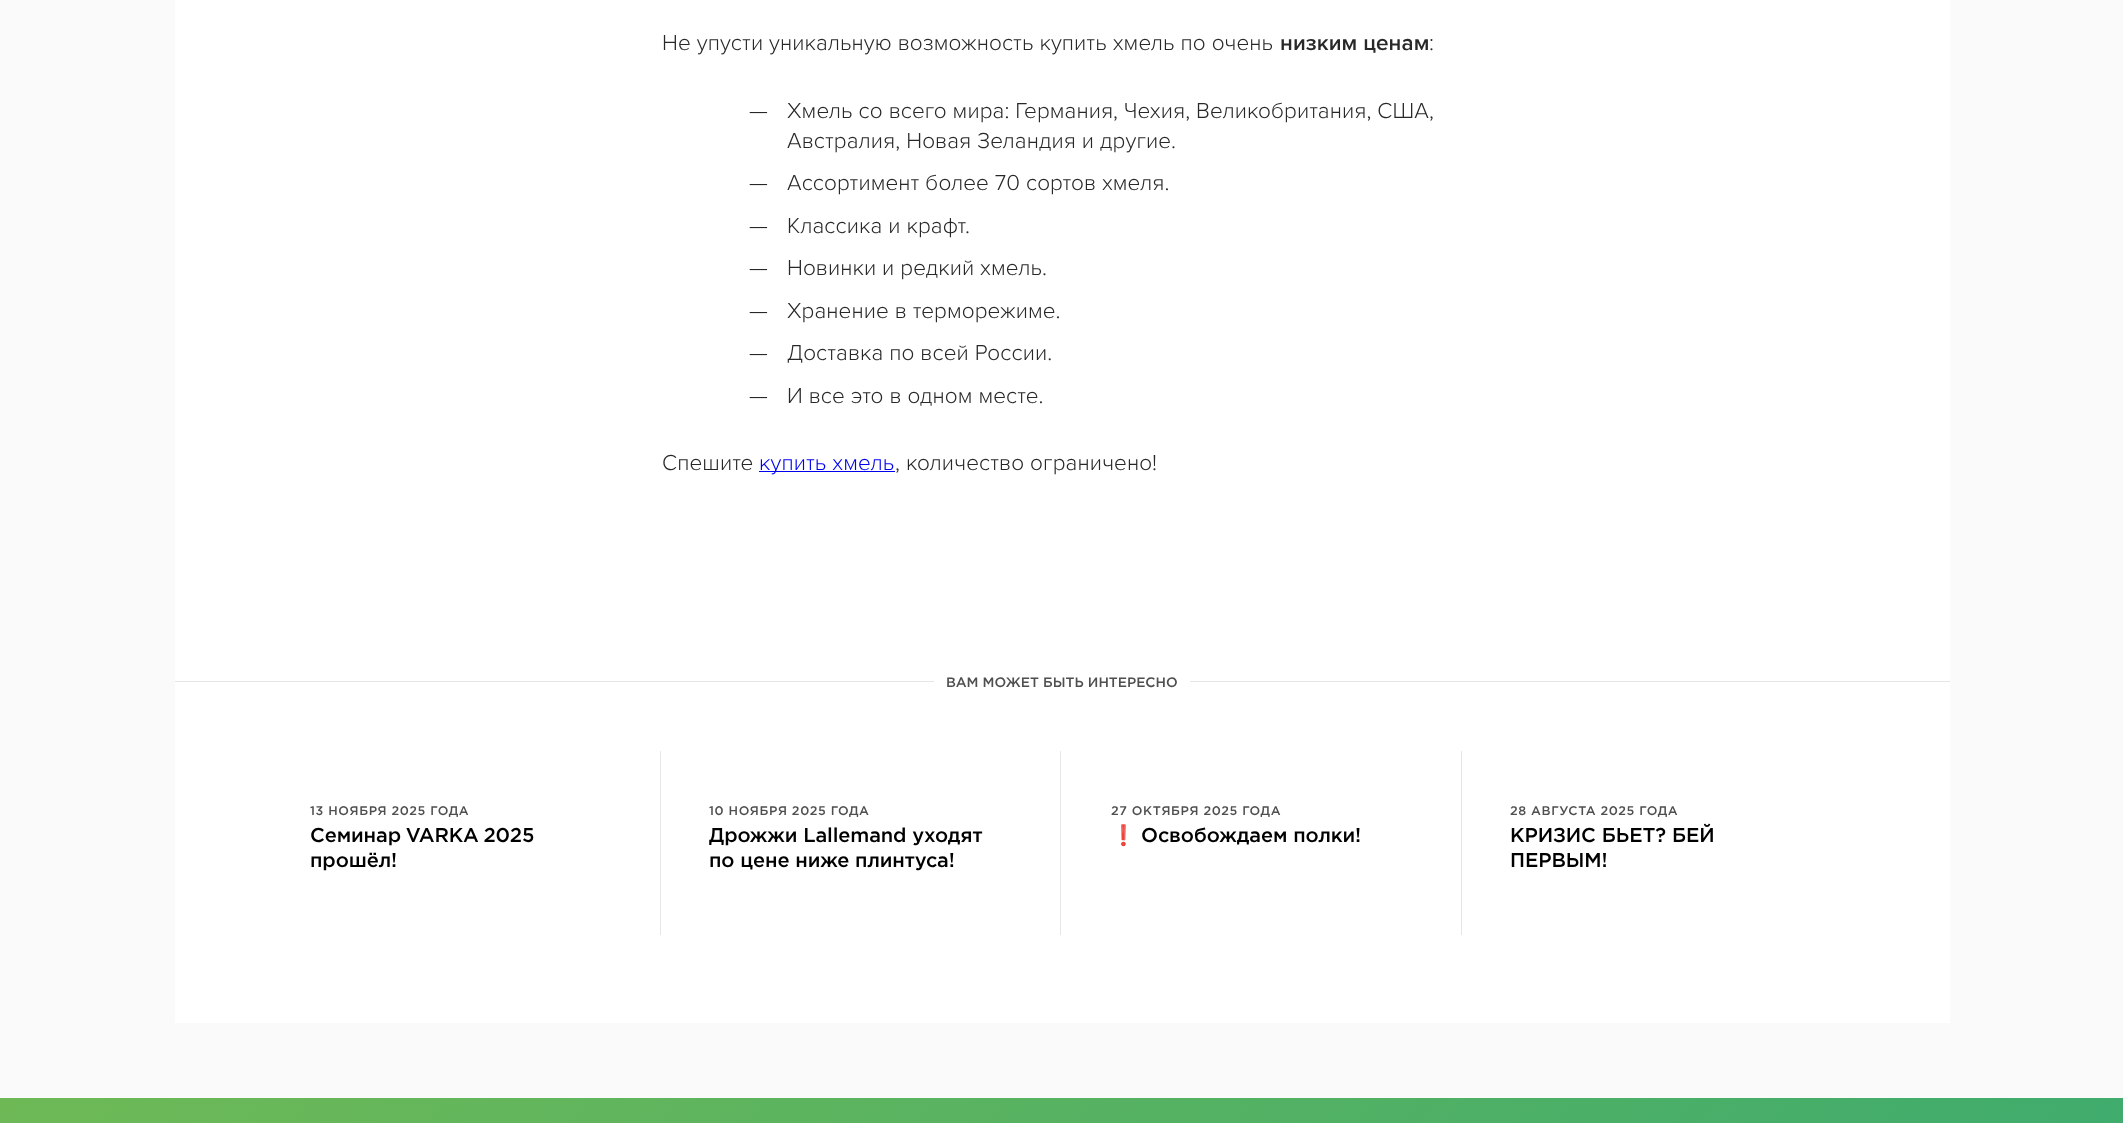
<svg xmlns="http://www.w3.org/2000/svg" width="2123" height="1123">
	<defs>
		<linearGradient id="g1" gradientUnits="userSpaceOnUse" x1="495" y1="603" x2="1629" y2="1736"><stop offset="0" stop-color="#6EB956" /><stop offset="1" stop-color="#3DAB6E" /></linearGradient>
	</defs>
	<rect width="100%" height="100%" fill="#FFFFFF" />
	<rect x="0" y="0" width="2123" height="1098" fill="#FAFAFA" />
	<rect x="175" y="0" width="1775" height="1023" fill="#FFFFFF" />
	<text x="662" y="50" font-family="Proxima Nova" font-size="22.5" font-weight="300" letter-spacing="0.1" fill="#282828">Не упусти уникальную возможность купить хмель по очень</text>
	<text x="1280" y="50" font-family="Proxima Nova" font-size="22.5" font-weight="600" letter-spacing="0.1" fill="#282828">низким ценам</text>
	<g font-family="Proxima Nova" font-size="22.5" font-weight="300" letter-spacing="0.1" fill="#282828">
		<text x="1429" y="50">:</text>
		<text x="749" y="118">—</text>
		<text x="787" y="118">Хмель со всего мира: Германия, Чехия, Великобритания, США,</text>
		<text x="787" y="148">Австралия, Новая Зеландия и другие.</text>
		<text x="749" y="190">—</text>
		<text x="787" y="190">Ассортимент более 70 сортов хмеля.</text>
		<text x="749" y="233">—</text>
		<text x="787" y="233">Классика и крафт.</text>
		<text x="749" y="275">—</text>
		<text x="787" y="275">Новинки и редкий хмель.</text>
		<text x="749" y="318">—</text>
		<text x="787" y="318">Хранение в терморежиме.</text>
		<text x="749" y="360">—</text>
		<text x="787" y="360">Доставка по всей России.</text>
		<text x="749" y="403">—</text>
		<text x="787" y="403">И все это в одном месте.</text>
		<text x="662" y="470">Спешите</text>
	</g>
	<rect x="759" y="471" width="136" height="1" fill="#0000EE" />
	<text x="759" y="470" font-family="Proxima Nova" font-size="22.5" font-weight="300" letter-spacing="0.1" fill="#0000EE">купить хмель</text>
	<text x="895" y="470" font-family="Proxima Nova" font-size="22.5" font-weight="300" letter-spacing="0.1" fill="#282828">, количество ограничено!</text>
	<rect x="175" y="681" width="759" height="1" fill="#E6E6E6" />
	<text x="946" y="687" font-family="Gotham" font-size="13.75" font-weight="500" fill="#4F4F4F">ВАМ МОЖЕТ БЫТЬ ИНТЕРЕСНО</text>
	<rect x="1190" y="681" width="760" height="1" fill="#E6E6E6" />
	<rect x="660" y="751" width="1" height="184" fill="#E6E6E6" />
	<text x="310" y="815" font-family="Gotham" font-size="12.5" font-weight="500" letter-spacing="0.6" fill="#4F4F4F">13 НОЯБРЯ 2025 ГОДА</text>
	<g font-family="Gotham" font-size="20" font-weight="500" letter-spacing="-0.1" fill="#000000">
		<text x="310" y="842" word-spacing="-1">Семинар VARKA 2025</text>
		<text x="310" y="867">прошёл!</text>
	</g>
	<rect x="1060" y="751" width="1" height="184" fill="#E6E6E6" />
	<text x="709" y="815" font-family="Gotham" font-size="12.5" font-weight="500" letter-spacing="0.6" fill="#4F4F4F">10 НОЯБРЯ 2025 ГОДА</text>
	<g font-family="Gotham" font-size="20" font-weight="500" letter-spacing="-0.1" fill="#000000">
		<text x="709" y="842">Дрожжи Lallemand уходят</text>
		<text x="709" y="867">по цене ниже плинтуса!</text>
	</g>
	<rect x="1461" y="751" width="1" height="184" fill="#E6E6E6" />
	<text x="1111" y="815" font-family="Gotham" font-size="12.5" font-weight="500" letter-spacing="0.6" fill="#4F4F4F">27 ОКТЯБРЯ 2025 ГОДА</text>
	<text x="1111" y="842" font-family="Noto Color Emoji" font-size="20" letter-spacing="-0.1" fill="#000000">❗️</text>
	<text x="1141" y="842" font-family="Gotham" font-size="20" font-weight="500" letter-spacing="-0.1" fill="#000000">Освобождаем полки!</text>
	<text x="1510" y="815" font-family="Gotham" font-size="12.5" font-weight="500" letter-spacing="0.6" fill="#4F4F4F">28 АВГУСТА 2025 ГОДА</text>
	<g font-family="Gotham" font-size="20" font-weight="500" letter-spacing="-0.1" fill="#000000">
		<text x="1510" y="842">КРИЗИС БЬЕТ? БЕЙ</text>
		<text x="1510" y="867">ПЕРВЫМ!</text>
	</g>
	<rect x="0" y="1098" width="2123" height="25" fill="url(#g1)" />
</svg>
